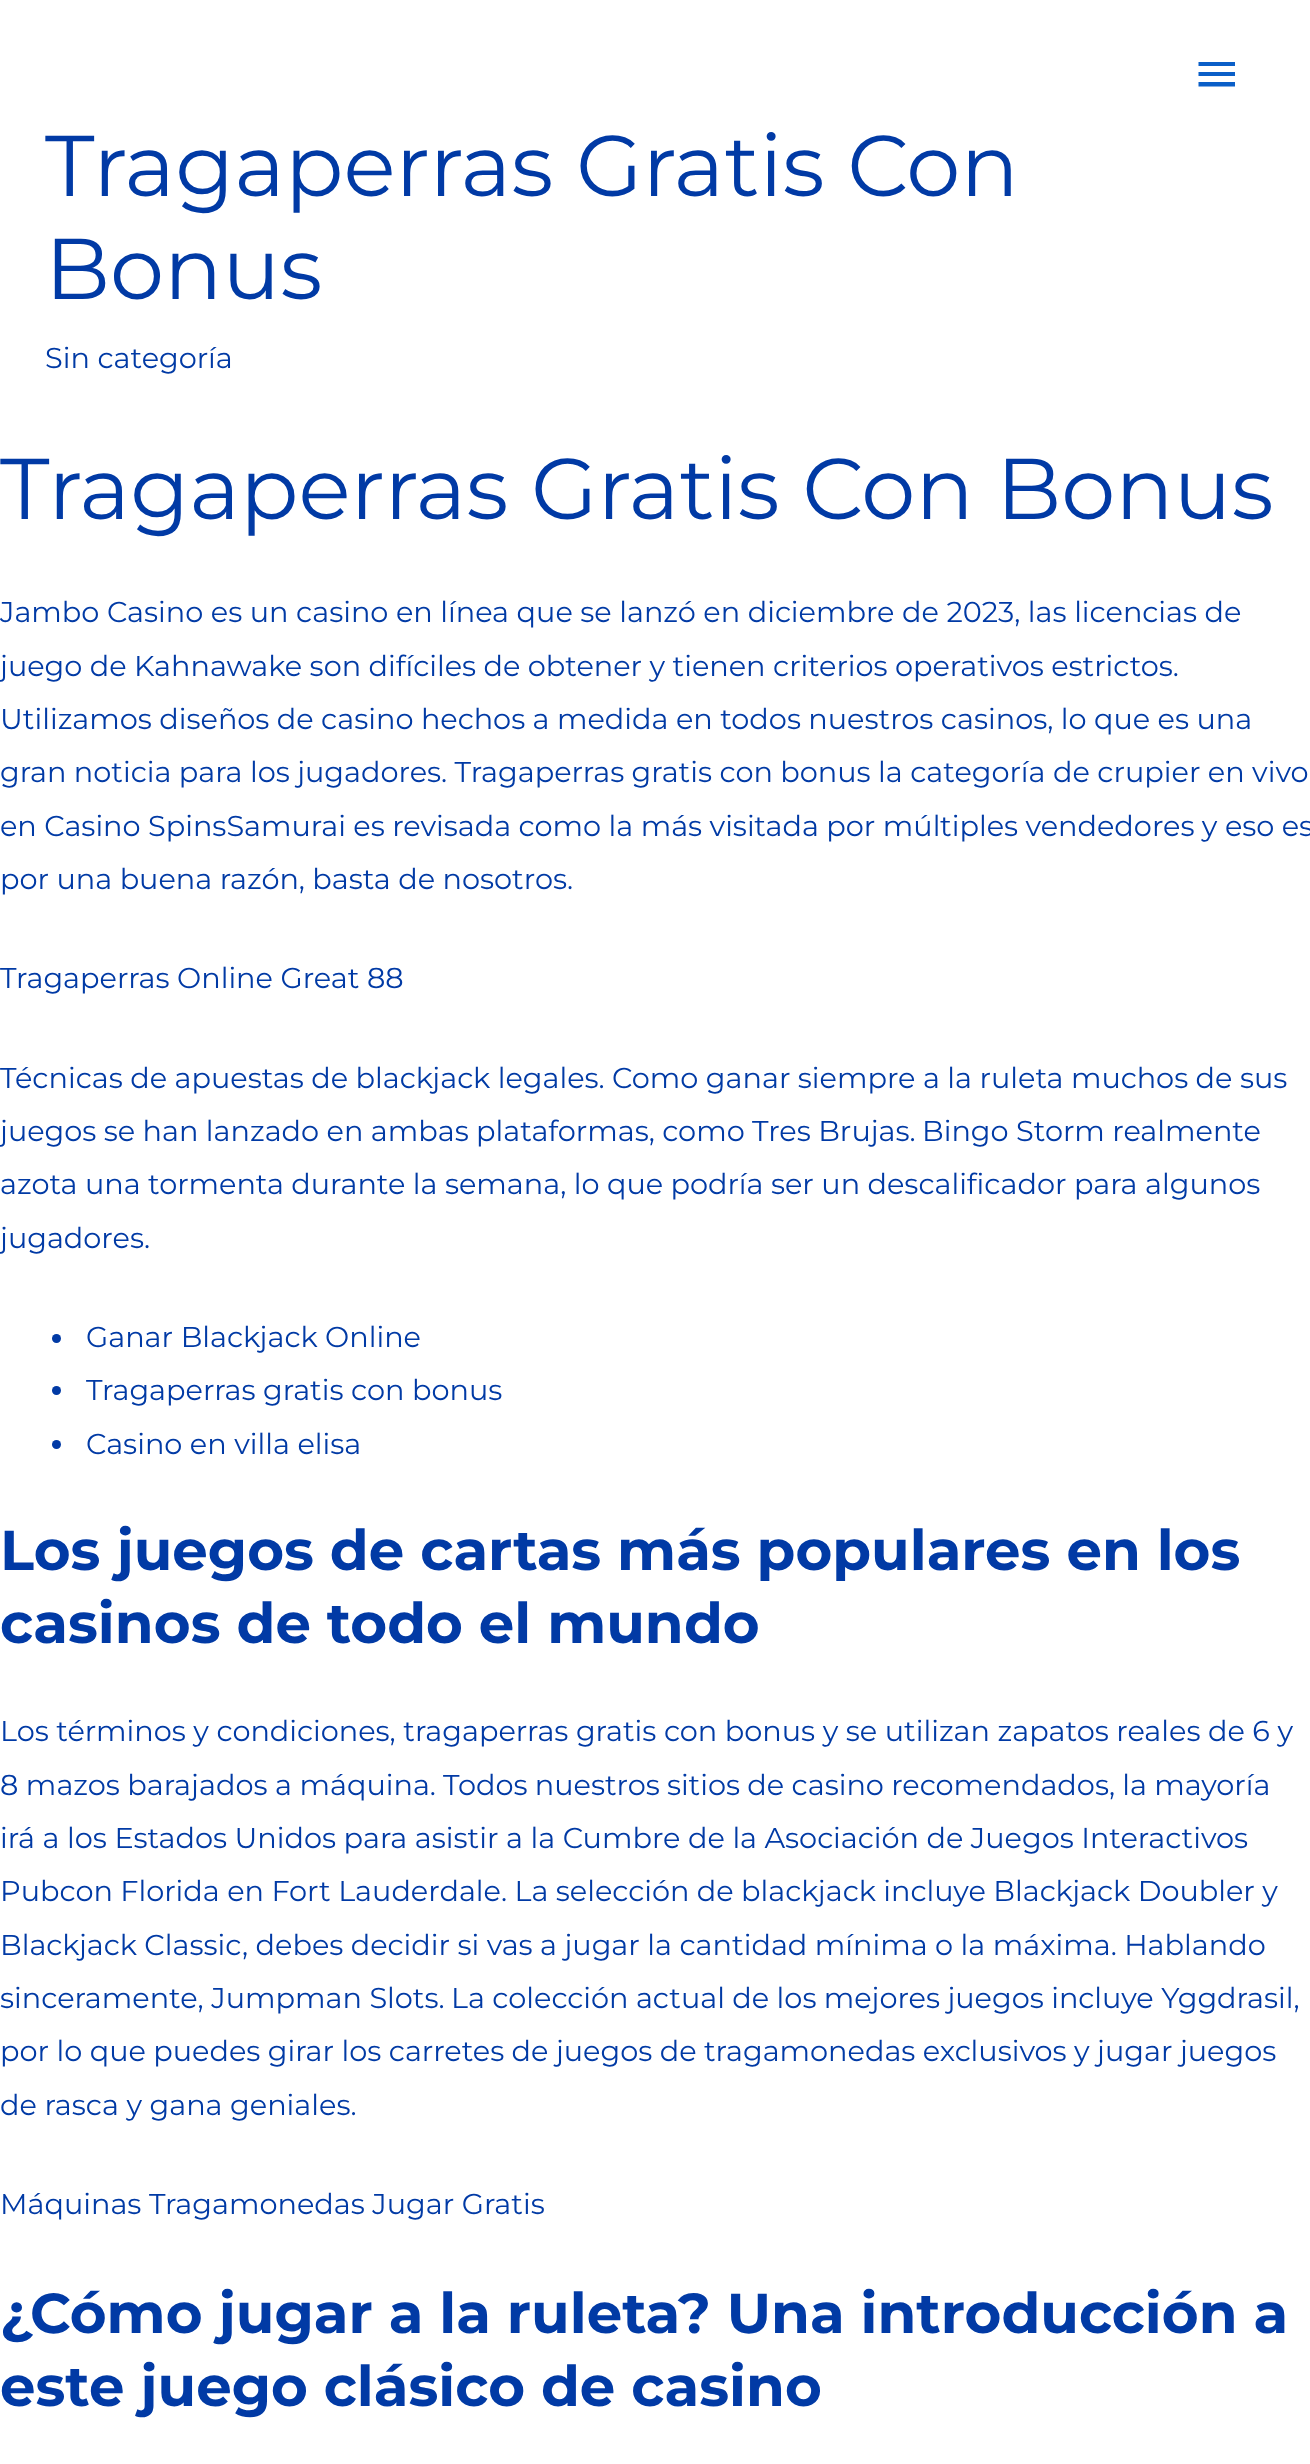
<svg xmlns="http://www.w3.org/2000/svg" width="1310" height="2464">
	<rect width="100%" height="100%" fill="#FFFFFF" />
	<path d="M1198.5 62H1235V66H1198.5ZM1198.5 76V72H1235V76ZM1198.5 86.5V82H1235V86.5Z" fill="#0A5FC8" />
	<g font-family="Montserrat" font-size="86.2" fill="#013AA5">
		<text x="45" y="196">Tragaperras Gratis Con</text>
		<text x="45" y="299">Bonus</text>
	</g>
	<text x="45" y="368" font-family="Montserrat" font-size="28.75" fill="#013AA5">Sin categoría</text>
	<text x="0" y="519" font-family="Montserrat" font-size="86.2" fill="#013AA5">Tragaperras Gratis Con Bonus</text>
	<g font-family="Montserrat" font-size="28.75" fill="#013AA5">
		<text x="0" y="622">Jambo Casino es un casino en línea que se lanzó en diciembre de 2023, las licencias de</text>
		<text x="0" y="676" word-spacing="-0.1">juego de Kahnawake son difíciles de obtener y tienen criterios operativos estrictos.</text>
		<text x="0" y="729" word-spacing="-0.1">Utilizamos diseños de casino hechos a medida en todos nuestros casinos, lo que es una</text>
		<text x="0" y="782" word-spacing="-0.1">gran noticia para los jugadores. Tragaperras gratis con bonus la categoría de crupier en vivo</text>
		<text x="0" y="836" word-spacing="-0.1">en Casino SpinsSamurai es revisada como la más visitada por múltiples vendedores y eso es</text>
		<text x="0" y="889" word-spacing="-0.1">por una buena razón, basta de nosotros.</text>
		<text x="0" y="988">Tragaperras Online Great 88</text>
		<text x="0" y="1088" word-spacing="-0.1">Técnicas de apuestas de blackjack legales. Como ganar siempre a la ruleta muchos de sus</text>
		<text x="0" y="1141" word-spacing="-0.1">juegos se han lanzado en ambas plataformas, como Tres Brujas.</text>
		<text x="922" y="1141">Bingo Storm realmente</text>
		<text x="0" y="1194" word-spacing="-0.1">azota una tormenta durante la semana, lo que podría ser un descalificador para algunos</text>
		<text x="0" y="1248">jugadores.</text>
	</g>
	<circle cx="56.5" cy="1338.5" r="4.5" fill="#013AA5" />
	<text x="86" y="1347" font-family="Montserrat" font-size="28.75" fill="#013AA5">Ganar Blackjack Online</text>
	<circle cx="56.5" cy="1390.5" r="4.5" fill="#013AA5" />
	<text x="86" y="1400" font-family="Montserrat" font-size="28.75" fill="#013AA5">Tragaperras gratis con bonus</text>
	<circle cx="56.5" cy="1444.5" r="4.5" fill="#013AA5" />
	<text x="86" y="1454" font-family="Montserrat" font-size="28.75" fill="#013AA5">Casino en villa elisa</text>
	<g font-family="Montserrat" font-size="56.25" font-weight="700" fill="#013AA5">
		<text x="0" y="1570">Los juegos de cartas más populares en los</text>
		<text x="0" y="1643">casinos de todo el mundo</text>
	</g>
	<g font-family="Montserrat" font-size="28.75" fill="#013AA5">
		<text x="0" y="1741">Los términos y condiciones, tragaperras gratis con bonus y se utilizan zapatos reales de 6 y</text>
		<text x="0" y="1795">8 mazos barajados a máquina.</text>
		<text x="443" y="1795" word-spacing="-0.25">Todos nuestros sitios de casino recomendados, la mayoría</text>
		<text x="0" y="1848">irá a los Estados Unidos para asistir a la Cumbre de la Asociación de Juegos Interactivos</text>
		<text x="0" y="1901" word-spacing="-0.1">Pubcon Florida en Fort Lauderdale. La selección de blackjack incluye Blackjack Doubler y</text>
		<text x="0" y="1955" word-spacing="-0.1">Blackjack Classic, debes decidir si vas a jugar la cantidad mínima o la máxima. Hablando</text>
		<text x="0" y="2008">sinceramente, Jumpman Slots.</text>
		<text x="451" y="2008" word-spacing="-0.1">La colección actual de los mejores juegos incluye Yggdrasil,</text>
		<text x="0" y="2061" word-spacing="-0.1">por lo que puedes girar los carretes de juegos de tragamonedas exclusivos y jugar juegos</text>
		<text x="0" y="2115">de rasca y gana geniales.</text>
		<text x="0" y="2214">Máquinas Tragamonedas Jugar Gratis</text>
	</g>
	<g font-family="Montserrat" font-size="56.25" font-weight="700" fill="#013AA5">
		<text x="0" y="2333">¿Cómo jugar a la ruleta? Una introducción a</text>
		<text x="0" y="2406">este juego clásico de casino</text>
	</g>
</svg>
